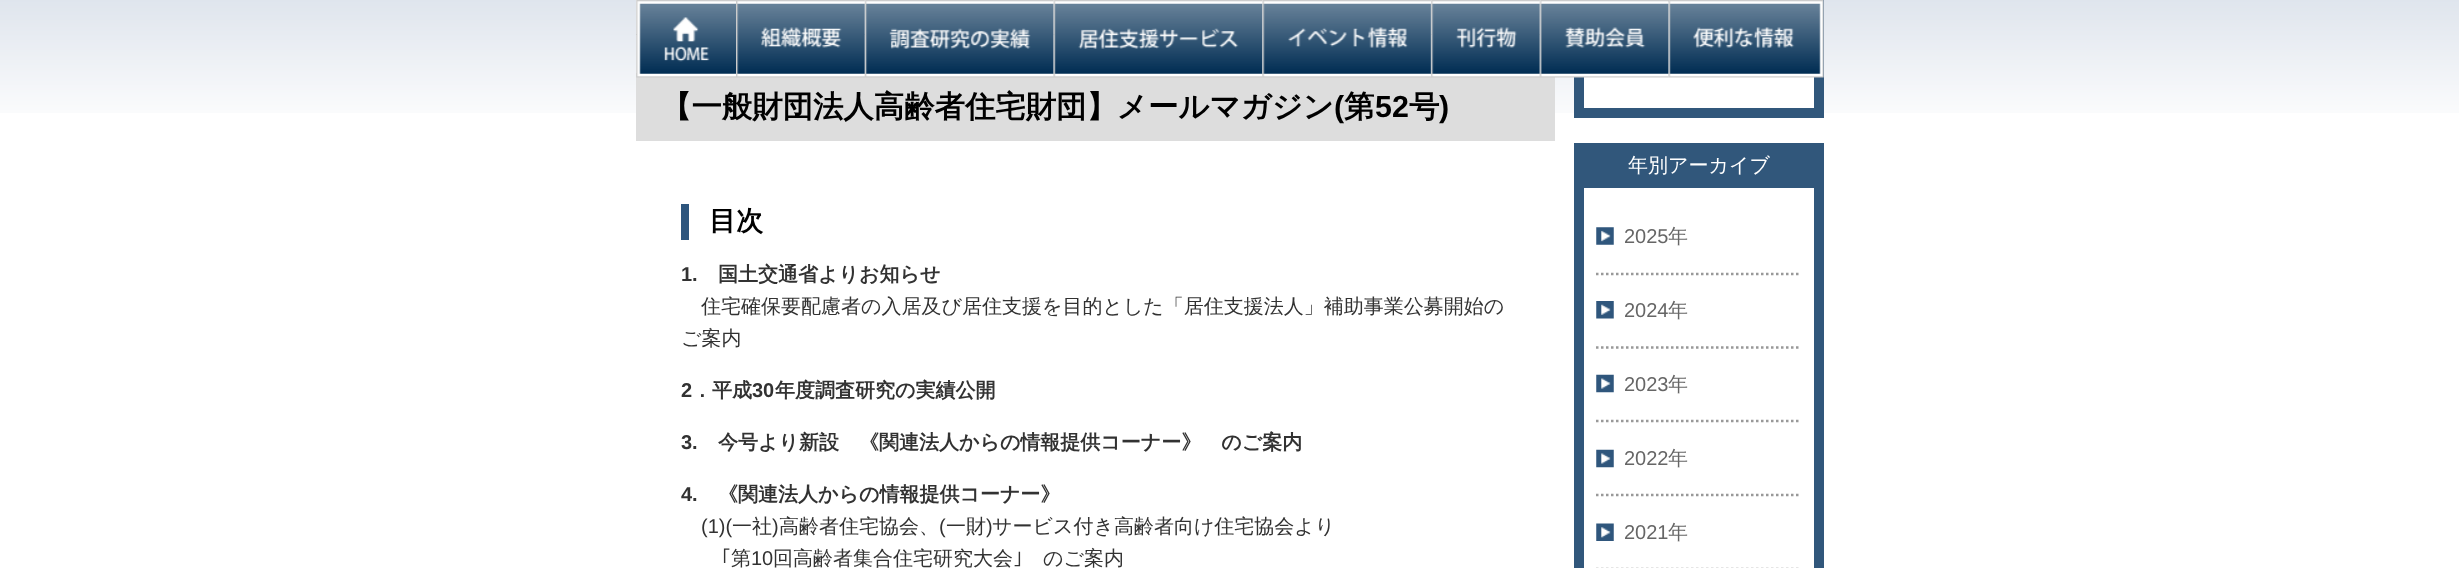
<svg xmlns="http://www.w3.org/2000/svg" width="2459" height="568">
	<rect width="100%" height="100%" fill="#FFFFFF" />
	<image x="0" y="0" width="2459" height="113" href="assets/img1.png" />
	<rect x="636" y="0" width="919" height="113" fill="#FFFFFF" />
	<path d="M636 34.5H1555" fill="none" stroke="#CCCCCC" stroke-width="1.2" stroke-dasharray="1.25 1.25" />
	<rect x="636" y="73" width="919" height="68" fill="#DDDDDD" />
	<image x="636" y="0" width="101" height="78" href="assets/img2.png" />
	<image x="736" y="0" width="130" height="78" href="assets/img3.png" />
	<image x="864" y="0" width="191" height="78" href="assets/img4.png" />
	<image x="1053" y="0" width="211" height="78" href="assets/img5.png" />
	<image x="1262" y="0" width="170" height="78" href="assets/img6.png" />
	<image x="1431" y="0" width="110" height="78" href="assets/img7.png" />
	<rect x="1574" y="0" width="250" height="118" fill="#31577B" />
	<rect x="1584" y="0" width="230" height="108" fill="#FFFFFF" />
	<path d="M1596 1H1801" fill="none" stroke="#999999" stroke-width="2.5" stroke-dasharray="2.5 2.5" />
	<path d="M1596 75H1801" fill="none" stroke="#999999" stroke-width="2.5" stroke-dasharray="2.5 2.5" />
	<image x="1539" y="0" width="131" height="78" href="assets/img8.png" />
	<image x="1668" y="0" width="156" height="78" href="assets/img9.png" />
	<text x="661" y="117" font-family="WenQuanYi Zen Hei" font-size="30.4" font-weight="700" fill="#000000">【一般財団法人高齢者住宅財団】メールマガジン</text>
	<text x="1334" y="117" font-family="Liberation Sans" font-size="30.4" font-weight="700" fill="#000000">(</text>
	<text x="1344" y="117" font-family="WenQuanYi Zen Hei" font-size="30.4" font-weight="700" fill="#000000">第</text>
	<text x="1375" y="117" font-family="Liberation Sans" font-size="30.4" font-weight="700" fill="#000000">52</text>
	<text x="1409" y="117" font-family="WenQuanYi Zen Hei" font-size="30.4" font-weight="700" fill="#000000">号</text>
	<text x="1439" y="117" font-family="Liberation Sans" font-size="30.4" font-weight="700" fill="#000000">)</text>
	<rect x="681" y="204" width="8" height="36" fill="#2D557D" />
	<text x="709" y="230" font-family="WenQuanYi Zen Hei" font-size="27" font-weight="700" fill="#000000">目次</text>
	<text x="681" y="281" font-family="Liberation Sans" font-size="20" font-weight="700" fill="#323232">1.</text>
	<text x="718" y="281" font-family="WenQuanYi Zen Hei" font-size="20" font-weight="700" fill="#323232">国土交通省よりお知らせ</text>
	<g font-family="WenQuanYi Zen Hei" font-size="20" font-weight="500" fill="#323232">
		<text x="701" y="313">住宅確保要配慮者の入居及び居住支援を目的とした「居住支援法人」補助事業公募開始の</text>
		<text x="681" y="345">ご案内</text>
	</g>
	<text x="681" y="397" font-family="Liberation Sans" font-size="20" font-weight="700" fill="#323232">2</text>
	<text x="692" y="397" font-family="WenQuanYi Zen Hei" font-size="20" font-weight="700" fill="#323232">．平成</text>
	<text x="752" y="397" font-family="Liberation Sans" font-size="20" font-weight="700" fill="#323232">30</text>
	<text x="775" y="397" font-family="WenQuanYi Zen Hei" font-size="20" font-weight="700" fill="#323232">年度調査研究の実績公開</text>
	<text x="681" y="449" font-family="Liberation Sans" font-size="20" font-weight="700" fill="#323232">3.</text>
	<text x="718" y="449" font-family="WenQuanYi Zen Hei" font-size="20" font-weight="700" fill="#323232">今号より新設　《関連法人からの情報提供コーナー》　のご案内</text>
	<text x="681" y="501" font-family="Liberation Sans" font-size="20" font-weight="700" fill="#323232">4.</text>
	<text x="718" y="501" font-family="WenQuanYi Zen Hei" font-size="20" font-weight="700" fill="#323232">《関連法人からの情報提供コーナー》</text>
	<text x="701" y="533" font-family="Liberation Sans" font-size="20" fill="#323232">(1)(</text>
	<text x="732" y="533" font-family="WenQuanYi Zen Hei" font-size="20" font-weight="500" fill="#323232">一社</text>
	<text x="772" y="533" font-family="Liberation Sans" font-size="20" fill="#323232">)</text>
	<text x="779" y="533" font-family="WenQuanYi Zen Hei" font-size="20" font-weight="500" fill="#323232">高齢者住宅協会、</text>
	<text x="939" y="533" font-family="Liberation Sans" font-size="20" fill="#323232">(</text>
	<text x="946" y="533" font-family="WenQuanYi Zen Hei" font-size="20" font-weight="500" fill="#323232">一財</text>
	<text x="986" y="533" font-family="Liberation Sans" font-size="20" fill="#323232">)</text>
	<text x="992" y="533" font-family="WenQuanYi Zen Hei" font-size="20" font-weight="500" fill="#323232">サービス付き高齢者向け住宅協会より</text>
	<text x="721" y="565" font-family="IPAPGothic" font-size="20" fill="#323232">｢</text>
	<text x="731" y="565" font-family="WenQuanYi Zen Hei" font-size="20" font-weight="500" fill="#323232">第</text>
	<text x="751" y="565" font-family="Liberation Sans" font-size="20" fill="#323232">10</text>
	<text x="773" y="565" font-family="WenQuanYi Zen Hei" font-size="20" font-weight="500" fill="#323232">回高齢者集合住宅研究大会</text>
	<text x="1013" y="565" font-family="IPAPGothic" font-size="20" fill="#323232">｣</text>
	<text x="1043" y="565" font-family="WenQuanYi Zen Hei" font-size="20" font-weight="500" fill="#323232">のご案内</text>
	<rect x="1574" y="143" width="250" height="425" fill="#31577B" />
	<text x="1628" y="172" font-family="WenQuanYi Zen Hei" font-size="20" font-weight="500" fill="#FFFFFF">年別アーカイブ</text>
	<rect x="1584" y="188" width="230" height="380" fill="#FFFFFF" />
	<path d="M1596 274H1801" fill="none" stroke="#999999" stroke-width="2.5" stroke-dasharray="2.5 2.5" />
	<image x="1596" y="227" width="18" height="18" href="assets/img10.png" />
	<text x="1624" y="243" font-family="Liberation Sans" font-size="20" fill="#666666">2025</text>
	<text x="1668" y="243" font-family="WenQuanYi Zen Hei" font-size="20" font-weight="500" fill="#666666">年</text>
	<path d="M1596 347.5H1801" fill="none" stroke="#999999" stroke-width="2.5" stroke-dasharray="2.5 2.5" />
	<image x="1596" y="301" width="18" height="18" href="assets/img11.png" />
	<text x="1624" y="317" font-family="Liberation Sans" font-size="20" fill="#666666">2024</text>
	<text x="1668" y="317" font-family="WenQuanYi Zen Hei" font-size="20" font-weight="500" fill="#666666">年</text>
	<path d="M1596 421H1801" fill="none" stroke="#999999" stroke-width="2.5" stroke-dasharray="2.5 2.5" />
	<image x="1596" y="374" width="18" height="19" href="assets/img12.png" />
	<text x="1624" y="391" font-family="Liberation Sans" font-size="20" fill="#666666">2023</text>
	<text x="1668" y="391" font-family="WenQuanYi Zen Hei" font-size="20" font-weight="500" fill="#666666">年</text>
	<path d="M1596 495H1801" fill="none" stroke="#999999" stroke-width="2.5" stroke-dasharray="2.5 2.5" />
	<image x="1596" y="449" width="18" height="19" href="assets/img13.png" />
	<text x="1624" y="465" font-family="Liberation Sans" font-size="20" fill="#666666">2022</text>
	<text x="1668" y="465" font-family="WenQuanYi Zen Hei" font-size="20" font-weight="500" fill="#666666">年</text>
	<path d="M1596 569H1801" fill="none" stroke="#999999" stroke-width="2.5" stroke-dasharray="2.5 2.5" />
	<image x="1596" y="523" width="18" height="18" href="assets/img14.png" />
	<text x="1624" y="539" font-family="Liberation Sans" font-size="20" fill="#666666">2021</text>
	<text x="1668" y="539" font-family="WenQuanYi Zen Hei" font-size="20" font-weight="500" fill="#666666">年</text>
</svg>
